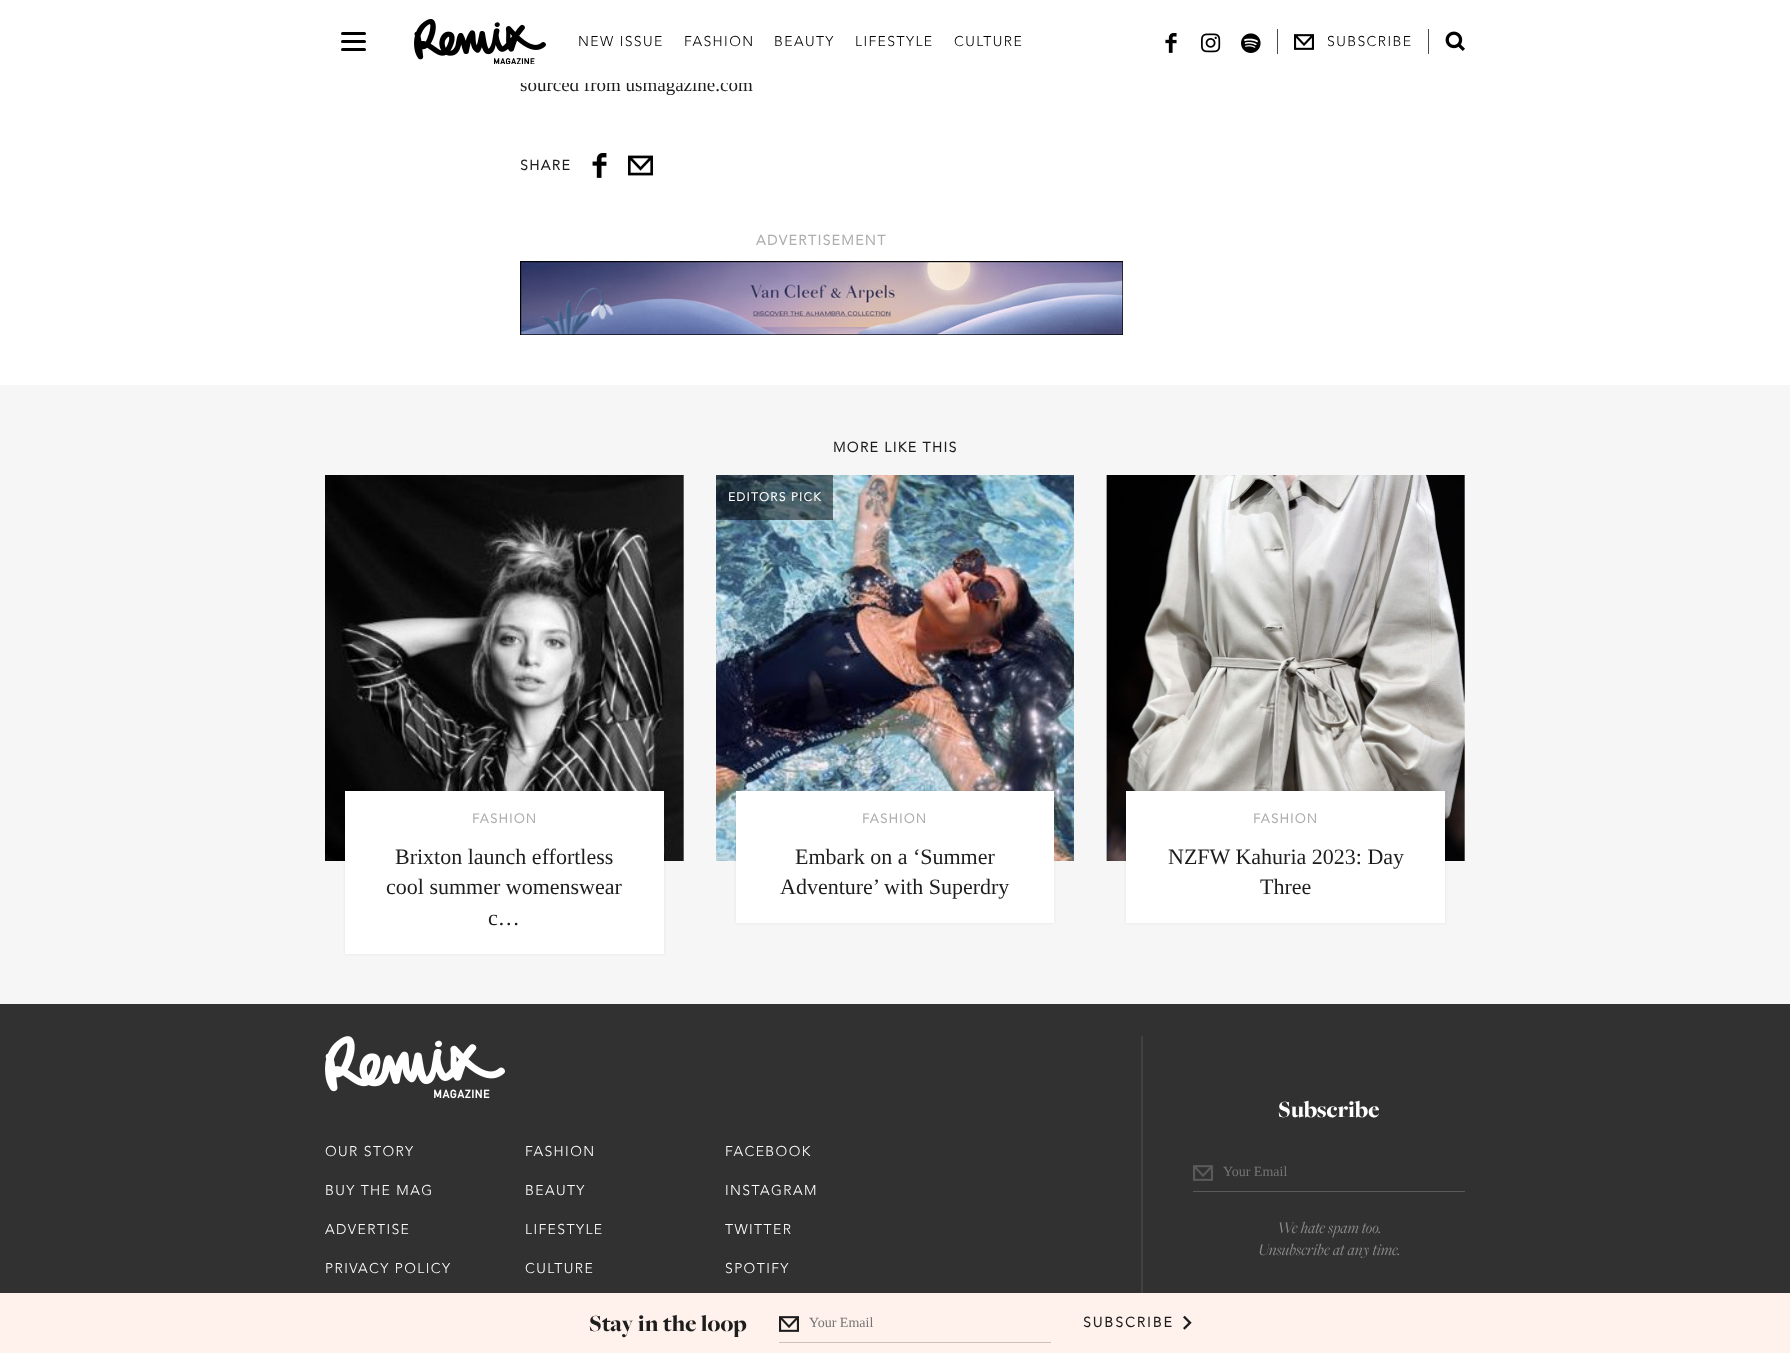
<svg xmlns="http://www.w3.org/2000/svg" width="1790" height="1353">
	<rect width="100%" height="100%" fill="#FFFFFF" />
	<text x="520" y="91" font-family="Liberation Serif" font-size="19" fill="#1D1D1D">sourced from usmagazine.com</text>
	<rect x="521" y="77" width="231" height="6" fill="#FFFFFF" />
	<rect x="341" y="40" width="25" height="3" rx="1.5" fill="#000000" />
	<rect x="341" y="32" width="25" height="3" rx="1.5" fill="#000000" />
	<rect x="341" y="48" width="25" height="3" rx="1.5" fill="#000000" />
	<image x="414" y="19" width="132" height="45" href="assets/img1.png" />
	<g font-family="'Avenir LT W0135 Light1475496'" font-size="14" font-weight="300" letter-spacing="1.4" fill="#000000">
		<text x="578" y="46">NEW ISSUE</text>
		<text x="684" y="46">FASHION</text>
		<text x="774" y="46">BEAUTY</text>
		<text x="855" y="46">LIFESTYLE</text>
		<text x="954" y="46">CULTURE</text>
	</g>
	<image x="1165" y="33" width="12" height="20" href="assets/img2.png" />
	<image x="1201" y="33" width="20" height="20" href="assets/img3.png" />
	<image x="1241" y="33" width="20" height="20" href="assets/img4.png" />
	<rect x="1277" y="29" width="1" height="25" fill="#4A4A4A" />
	<image x="1294" y="34" width="20" height="16" href="assets/img5.png" />
	<text x="1327" y="46" font-family="'Avenir LT W0135 Light1475496'" font-size="14" font-weight="300" letter-spacing="1.4" fill="#000000">SUBSCRIBE</text>
	<rect x="1428" y="29" width="1" height="25" fill="#4A4A4A" />
	<image x="1445" y="31" width="20" height="20" href="assets/img6.png" />
	<text x="520" y="170" font-family="'Avenir LT W0135 Light1475496'" font-size="14" font-weight="700" letter-spacing="1.4" fill="#1D1D1D">SHARE</text>
	<image x="592" y="153" width="15" height="25" href="assets/img7.png" />
	<image x="628" y="155" width="25" height="21" href="assets/img8.png" />
	<text x="756" y="245" font-family="'Avenir LT W0135 Light1475496'" font-size="14" font-weight="700" letter-spacing="1.4" fill="#AEAEAE">ADVERTISEMENT</text>
	<image x="520" y="261" width="603" height="74" href="assets/img9.png" />
	<rect x="0" y="385" width="1790" height="619" fill="#F6F6F6" />
	<text x="833" y="452" font-family="'Avenir LT W0135 Light1475496'" font-size="14" font-weight="700" letter-spacing="1.4" fill="#1D1D1D">MORE LIKE THIS</text>
	<rect x="683" y="475" width="1" height="386" fill="#ECECEC" />
	<image x="325" y="475" width="359" height="386" href="assets/img10.png" />
	<rect x="345" y="791" width="319" height="163" fill="#000000" fill-opacity="0.08" filter="blur(1.5px)" />
	<rect x="345" y="791" width="319" height="163" fill="#FFFFFF" />
	<text x="472" y="823" font-family="'Avenir LT W0135 Light1475496'" font-size="13" font-weight="700" letter-spacing="1.25" fill="#AEAEAE">FASHION</text>
	<g font-family="Liberation Serif" font-size="22" fill="#1D1D1D">
		<text x="395" y="864">Brixton launch effortless</text>
		<text x="386" y="894">cool summer womenswear</text>
		<text x="488" y="925">c…</text>
	</g>
	<image x="716" y="475" width="358" height="386" href="assets/img11.png" />
	<rect x="716" y="475" width="117" height="45" fill="#000000" fill-opacity="0.5" />
	<text x="728" y="501" font-family="'Avenir LT W0135 Light1475496'" font-size="12" font-weight="700" letter-spacing="1.25" fill="#FFFFFF">EDITORS PICK</text>
	<rect x="736" y="791" width="318" height="132" fill="#000000" fill-opacity="0.08" filter="blur(1.5px)" />
	<rect x="736" y="791" width="318" height="132" fill="#FFFFFF" />
	<text x="862" y="823" font-family="'Avenir LT W0135 Light1475496'" font-size="13" font-weight="700" letter-spacing="1.25" fill="#AEAEAE">FASHION</text>
	<g font-family="Liberation Serif" font-size="22" fill="#1D1D1D">
		<text x="795" y="864">Embark on a ‘Summer</text>
		<text x="780" y="894">Adventure’ with Superdry</text>
	</g>
	<rect x="1106" y="475" width="359" height="386" fill="#ECECEC" />
	<image x="1106" y="475" width="359" height="386" href="assets/img12.png" />
	<rect x="1126" y="791" width="319" height="132" fill="#000000" fill-opacity="0.08" filter="blur(1.5px)" />
	<rect x="1126" y="791" width="319" height="132" fill="#FFFFFF" />
	<text x="1253" y="823" font-family="'Avenir LT W0135 Light1475496'" font-size="13" font-weight="700" letter-spacing="1.25" fill="#AEAEAE">FASHION</text>
	<g font-family="Liberation Serif" font-size="22" fill="#1D1D1D">
		<text x="1168" y="864">NZFW Kahuria 2023: Day</text>
		<text x="1260" y="894">Three</text>
	</g>
	<rect x="0" y="1004" width="1790" height="289" fill="#313131" />
	<image x="325" y="1036" width="180" height="62" href="assets/img13.png" />
	<g font-family="'Avenir LT W0135 Light1475496'" font-size="14" font-weight="300" letter-spacing="1.4" fill="#FFFFFF">
		<text x="325" y="1156">OUR STORY</text>
		<text x="325" y="1195">BUY THE MAG</text>
		<text x="325" y="1234">ADVERTISE</text>
		<text x="325" y="1273">PRIVACY POLICY</text>
		<text x="525" y="1156">FASHION</text>
		<text x="525" y="1195">BEAUTY</text>
		<text x="525" y="1234">LIFESTYLE</text>
		<text x="525" y="1273">CULTURE</text>
		<text x="725" y="1156">FACEBOOK</text>
		<text x="725" y="1195">INSTAGRAM</text>
		<text x="725" y="1234">TWITTER</text>
		<text x="725" y="1273">SPOTIFY</text>
	</g>
	<rect x="1141" y="1036" width="2" height="257" fill="#414141" />
	<text x="1278" y="1117" font-family="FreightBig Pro" font-size="24" font-weight="900" fill="#FFFFFF">Subscribe</text>
	<image x="1193" y="1165" width="20" height="16" href="assets/img14.png" />
	<rect x="1193" y="1191" width="272" height="1" fill="#5A5A5A" />
	<text x="1223" y="1176" font-family="Liberation Serif" font-size="14" fill="#757575">Your Email</text>
	<g font-family="FreightBig Pro" font-size="17" font-style="italic" fill="#8B8B8B">
		<text x="1277" y="1233">We hate spam too.</text>
		<text x="1258" y="1255">Unsubscribe at any time.</text>
	</g>
	<rect x="0" y="1293" width="1790" height="60" fill="#FFF1EC" />
	<text x="589" y="1331" font-family="FreightBig Pro" font-size="24" font-weight="900" fill="#1D1D1D">Stay in the loop</text>
	<image x="779" y="1316" width="20" height="16" href="assets/img15.png" />
	<rect x="779" y="1342" width="272" height="1" fill="#CCC1BD" />
	<text x="809" y="1327" font-family="Liberation Serif" font-size="14" fill="#757575">Your Email</text>
	<text x="1083" y="1327" font-family="'Avenir LT W0135 Light1475496'" font-size="14" font-weight="700" letter-spacing="2" fill="#1D1D1D">SUBSCRIBE</text>
	<image x="1183" y="1315" width="9" height="15" href="assets/img16.png" />
</svg>
